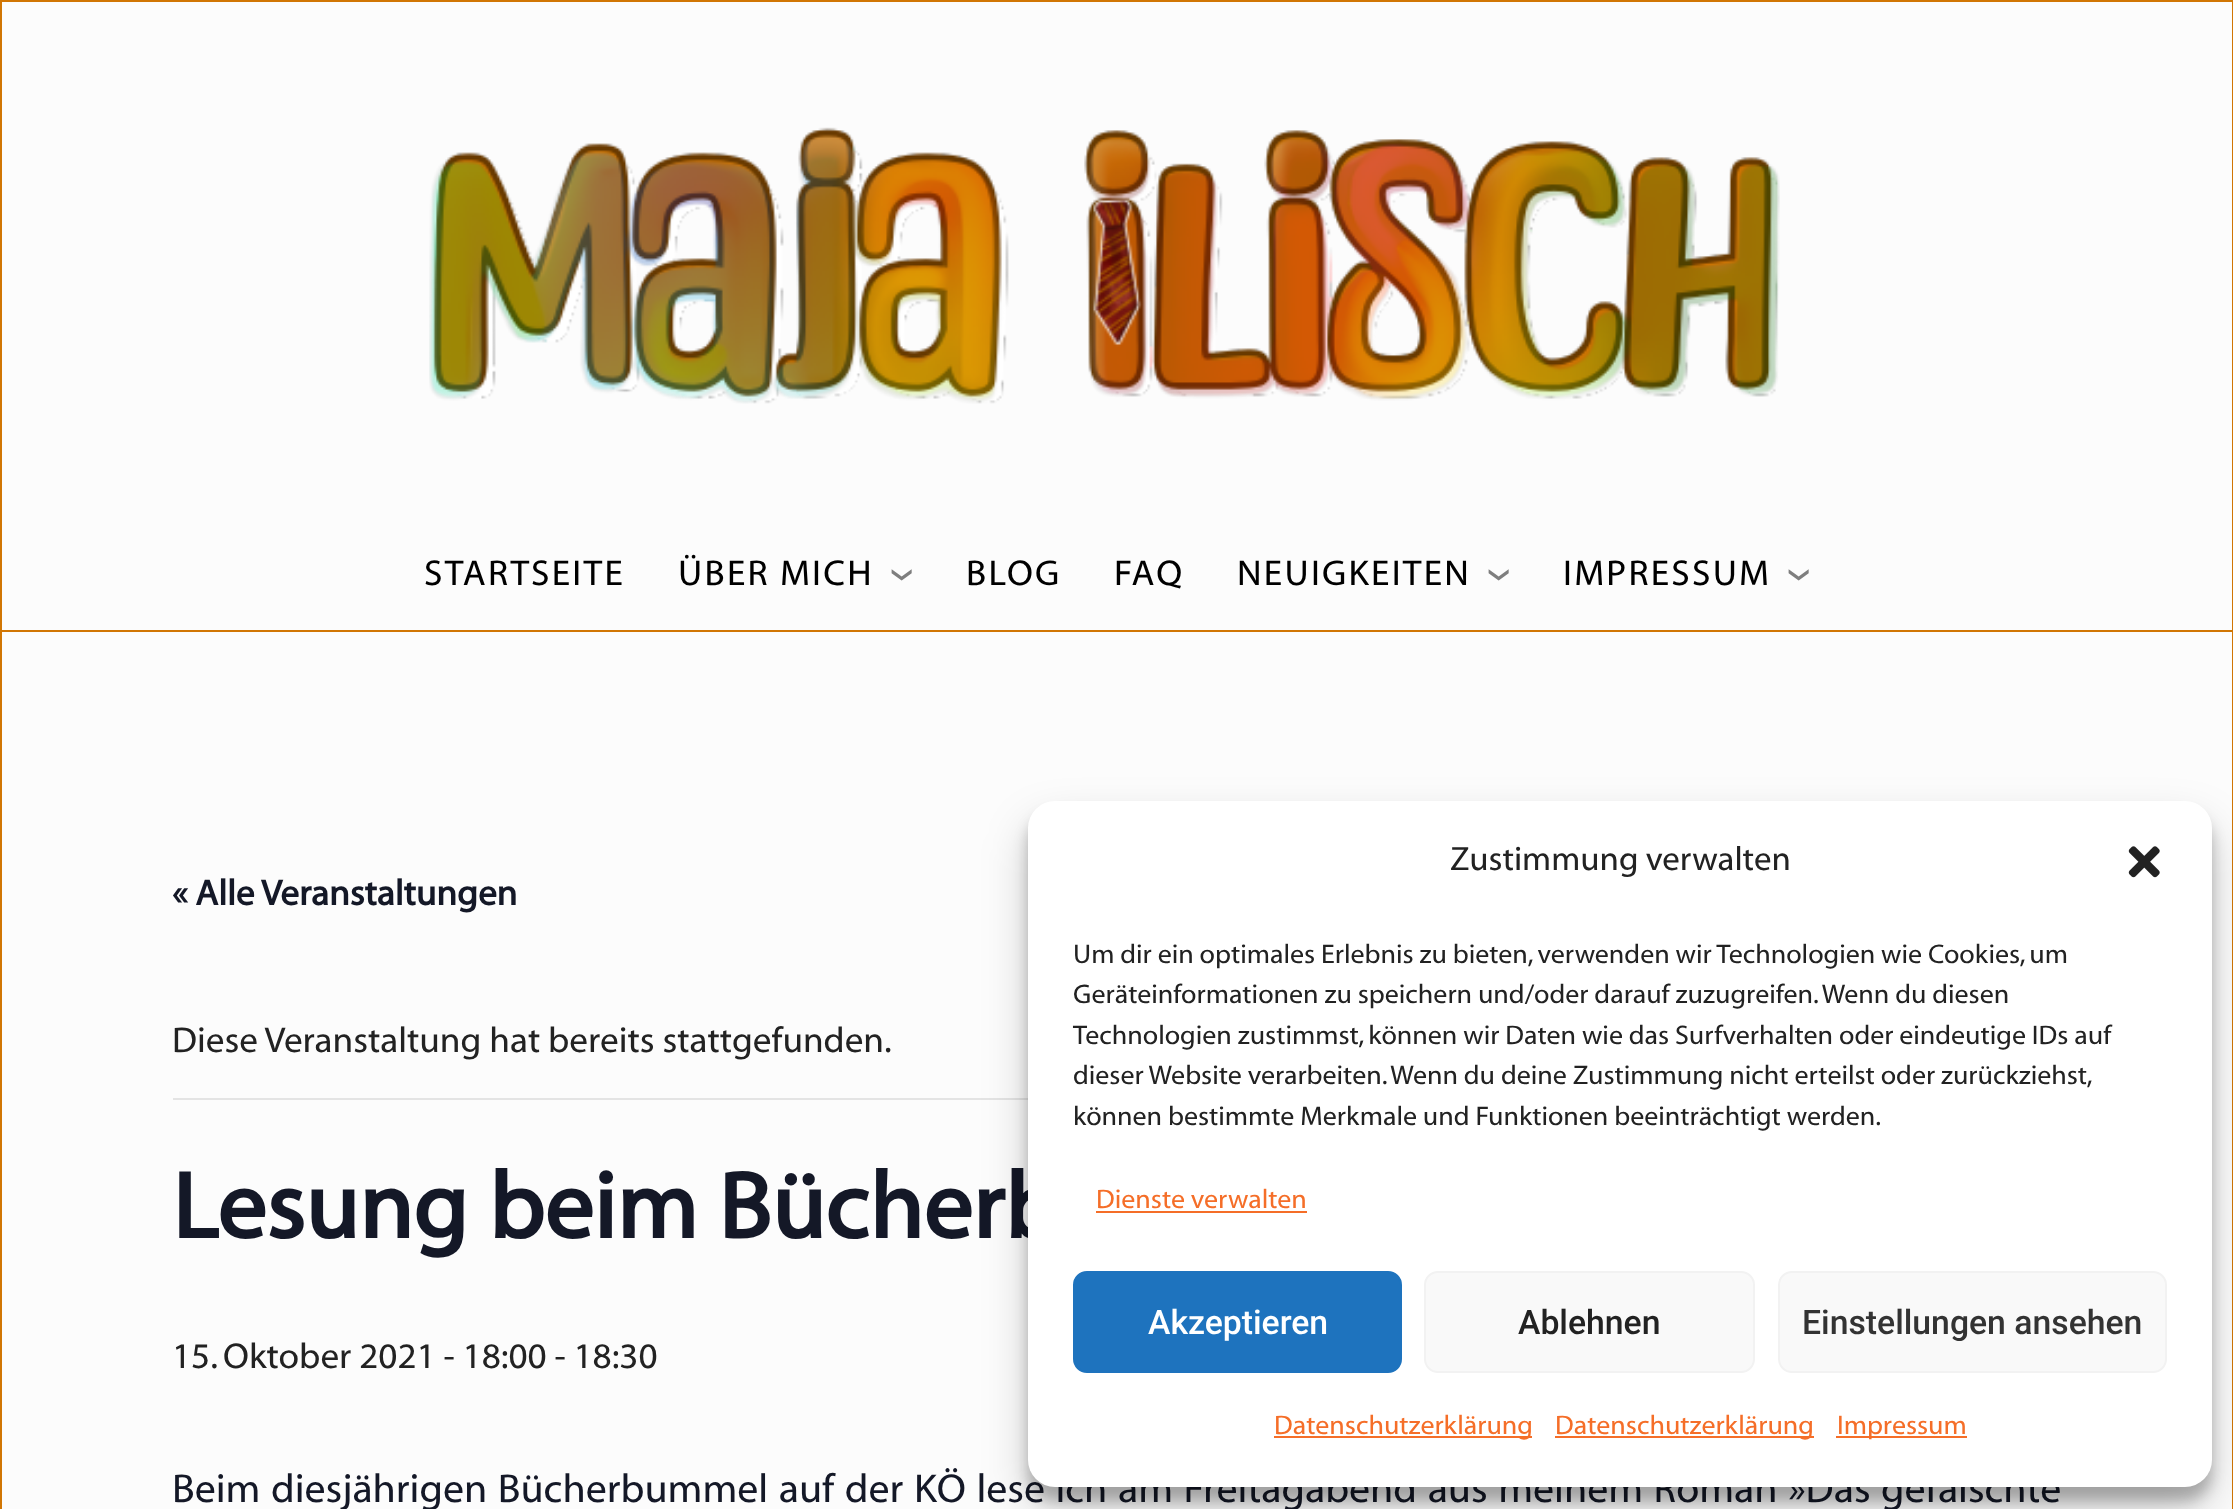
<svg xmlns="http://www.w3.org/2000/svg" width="2233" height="1509">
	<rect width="100%" height="100%" fill="#FCFCFC" />
	<rect x="1" y="1" width="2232" height="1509" fill="none" stroke="#D17604" stroke-width="2" />
	<rect x="2" y="630" width="2230" height="2" fill="#D17604" />
	<image x="429" y="127" width="1351" height="277" href="assets/img1.png" />
	<g font-family="Myriad" font-size="36" letter-spacing="2.25" fill="#000000">
		<text x="424" y="585">STARTSEITE</text>
		<text x="678" y="585">ÜBER MICH</text>
	</g>
	<text x="888" y="568" transform="rotate(90 888 568)" font-family="Myriad" font-size="54" letter-spacing="2.25" fill="#7E7E7E">›</text>
	<g font-family="Myriad" font-size="36" letter-spacing="2.25" fill="#000000">
		<text x="966" y="585">BLOG</text>
		<text x="1114" y="585">FAQ</text>
		<text x="1237" y="585">NEUIGKEITEN</text>
	</g>
	<text x="1485" y="568" transform="rotate(90 1485 568)" font-family="Myriad" font-size="54" letter-spacing="2.25" fill="#7E7E7E">›</text>
	<text x="1563" y="585" font-family="Myriad" font-size="36" letter-spacing="2.25" fill="#000000">IMPRESSUM</text>
	<text x="1785" y="568" transform="rotate(90 1785 568)" font-family="Myriad" font-size="54" letter-spacing="2.25" fill="#7E7E7E">›</text>
	<text x="172" y="905" font-family="Myriad" font-size="36" font-weight="700" fill="#141827">« Alle Veranstaltungen</text>
	<rect x="173" y="1098" width="855" height="2" fill="#E4E4E4" />
	<text x="172" y="1052" font-family="Myriad" font-size="36" fill="#222222">Diese Veranstaltung hat bereits stattgefunden.</text>
	<text x="172" y="1238" font-family="Myriad" font-size="94.5" font-weight="700" fill="#141827">Lesung beim Bücherb</text>
	<text x="172" y="1368" font-family="Myriad" font-size="36" fill="#222222">15. Oktober 2021 - 18:00 - 18:30</text>
	<text x="172" y="1502" word-spacing="1.75" font-family="Myriad" font-size="40.5" fill="#141827">Beim diesjährigen Bücherbummel auf der KÖ lese ich am Freitagabend aus meinem Roman »Das gefälschte</text>
	<rect x="1028" y="815" width="1184" height="686" rx="27" fill="#000000" fill-opacity="0.23" filter="blur(7px)" />
	<rect x="1028" y="824" width="1184" height="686" rx="27" fill="#000000" fill-opacity="0.19" filter="blur(22.5px)" />
	<rect x="1028" y="801" width="1184" height="686" rx="27" fill="#FFFFFF" />
	<text x="1450" y="870" font-family="Myriad" font-size="33.75" fill="#222222">Zustimmung verwalten</text>
	<image x="2128" y="846" width="32" height="32" href="assets/img2.png" />
	<g font-family="Myriad" font-size="27" fill="#222222">
		<text x="1073" y="963">Um dir ein optimales Erlebnis zu bieten, verwenden wir Technologien wie Cookies, um</text>
		<text x="1073" y="1003">Geräteinformationen zu speichern und/oder darauf zuzugreifen. Wenn du diesen</text>
		<text x="1073" y="1044">Technologien zustimmst, können wir Daten wie das Surfverhalten oder eindeutige IDs auf</text>
		<text x="1073" y="1084">dieser Website verarbeiten. Wenn du deine Zustimmung nicht erteilst oder zurückziehst,</text>
		<text x="1073" y="1125">können bestimmte Merkmale und Funktionen beeinträchtigt werden.</text>
	</g>
	<text x="1096" y="1208" font-family="Myriad" font-size="27" fill="#F56E28">Dienste verwalten</text>
	<rect x="1096" y="1211" width="211" height="2" fill="#F56E28" />
	<rect x="1074" y="1272" width="327" height="100" rx="13" fill="#1E73BE" stroke="#1E73BE" stroke-width="2" />
	<text x="1148" y="1334" font-family="Roboto" font-size="33.75" font-weight="500" fill="#FFFFFF">Akzeptieren</text>
	<rect x="1425" y="1272" width="329" height="100" rx="13" fill="#F9F9F9" stroke="#F2F2F2" stroke-width="2" />
	<text x="1518" y="1334" font-family="Roboto" font-size="33.75" font-weight="500" fill="#222222">Ablehnen</text>
	<rect x="1779" y="1272" width="387" height="100" rx="13" fill="#F9F9F9" stroke="#F2F2F2" stroke-width="2" />
	<text x="1802" y="1334" font-family="Roboto" font-size="33.75" font-weight="500" fill="#333333">Einstellungen ansehen</text>
	<rect x="1274" y="1436" width="258" height="2" fill="#F56E28" />
	<text x="1274" y="1434" font-family="Myriad" font-size="27" fill="#F56E28">Datenschutzerklärung</text>
	<rect x="1555" y="1436" width="259" height="2" fill="#F56E28" />
	<text x="1555" y="1434" font-family="Myriad" font-size="27" fill="#F56E28">Datenschutzerklärung</text>
	<rect x="1836" y="1436" width="131" height="2" fill="#F56E28" />
	<text x="1837" y="1434" font-family="Myriad" font-size="27" fill="#F56E28">Impressum</text>
</svg>
